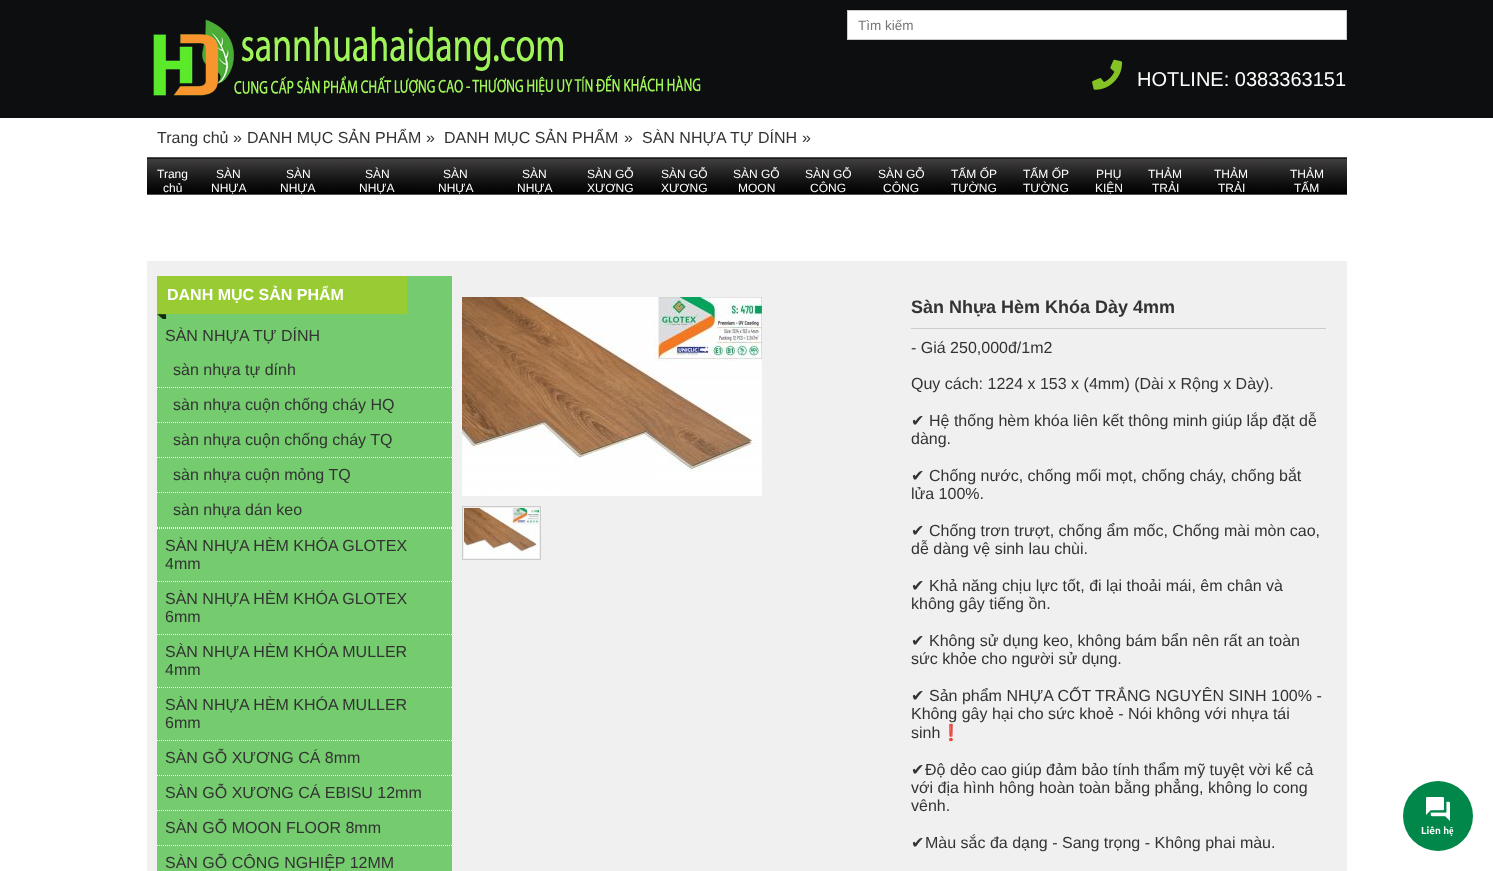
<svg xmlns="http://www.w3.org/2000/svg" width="1493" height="871">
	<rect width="100%" height="100%" fill="#FFFFFF" />
	<rect x="0" y="0" width="1493" height="118" fill="#0D0E0F" />
	<image x="153" y="19" width="548" height="77" href="assets/img1.png" />
	<rect x="847.5" y="10.5" width="499" height="29" fill="#FFFFFF" stroke="#CCCCCC" />
	<text x="858" y="30" font-family="Liberation Sans" font-size="13.5" fill="#757575">Tìm kiếm</text>
	<image x="1092" y="59" width="31" height="31" href="assets/img2.png" />
	<text x="1137" y="86" font-family="Liberation Sans" font-size="20" fill="#FFFFFF">HOTLINE: 0383363151</text>
	<g font-family="Liberation Sans" font-size="16" fill="#333333">
		<text x="157" y="143">Trang chủ</text>
		<text x="233" y="143">»</text>
		<text x="247" y="143">DANH MỤC SẢN PHẨM</text>
		<text x="426" y="143">»</text>
		<text x="444" y="143">DANH MỤC SẢN PHẨM</text>
		<text x="624" y="143">»</text>
		<text x="642" y="143">SÀN NHỰA TỰ DÍNH</text>
		<text x="802" y="143">»</text>
	</g>
	<image x="147" y="157" width="1200" height="38" href="assets/img3.png" />
	<g font-family="Liberation Sans" font-size="12" fill="#FFFFFF">
		<text x="157" y="178">Trang</text>
		<text x="163" y="192">chủ</text>
		<text x="216" y="178">SÀN</text>
		<text x="211" y="192">NHỰA</text>
		<text x="286" y="178">SÀN</text>
		<text x="280" y="192">NHỰA</text>
		<text x="365" y="178">SÀN</text>
		<text x="359" y="192">NHỰA</text>
		<text x="443" y="178">SÀN</text>
		<text x="438" y="192">NHỰA</text>
		<text x="522" y="178">SÀN</text>
		<text x="517" y="192">NHỰA</text>
		<text x="587" y="178">SÀN GỖ</text>
		<text x="587" y="192">XƯƠNG</text>
		<text x="661" y="178">SÀN GỖ</text>
		<text x="661" y="192">XƯƠNG</text>
		<text x="733" y="178">SÀN GỖ</text>
		<text x="738" y="192">MOON</text>
		<text x="805" y="178">SÀN GỖ</text>
		<text x="810" y="192">CÔNG</text>
		<text x="878" y="178">SÀN GỖ</text>
		<text x="883" y="192">CÔNG</text>
		<text x="951" y="178">TẤM ỐP</text>
		<text x="951" y="192">TƯỜNG</text>
		<text x="1023" y="178">TẤM ỐP</text>
		<text x="1023" y="192">TƯỜNG</text>
		<text x="1096" y="178">PHỤ</text>
		<text x="1095" y="192">KIỆN</text>
		<text x="1148" y="178">THẢM</text>
		<text x="1152" y="192">TRẢI</text>
		<text x="1214" y="178">THẢM</text>
		<text x="1218" y="192">TRẢI</text>
		<text x="1290" y="178">THẢM</text>
		<text x="1294" y="192">TẤM</text>
	</g>
	<rect x="147" y="261" width="1200" height="610" fill="#F0F0F0" />
	<rect x="157" y="276" width="295" height="595" fill="#74CC6E" />
	<image x="157" y="276" width="250" height="43" href="assets/img4.png" />
	<text x="167" y="300" font-family="Liberation Sans" font-size="16" font-weight="700" fill="#FFFFFF">DANH MỤC SẢN PHẨM</text>
	<path d="M157 528.5H452" fill="none" stroke="#FFFFFF" stroke-dasharray="1 1" />
	<text x="165" y="341" font-family="Liberation Sans" font-size="16" fill="#333333">SÀN NHỰA TỰ DÍNH</text>
	<path d="M157 387.5H452" fill="none" stroke="#FFFFFF" stroke-dasharray="1 1" />
	<text x="173" y="375" font-family="Liberation Sans" font-size="16" fill="#333333">sàn nhựa tự dính</text>
	<path d="M157 422.5H452" fill="none" stroke="#FFFFFF" stroke-dasharray="1 1" />
	<text x="173" y="410" font-family="Liberation Sans" font-size="16" fill="#333333">sàn nhựa cuộn chống cháy HQ</text>
	<path d="M157 457.5H452" fill="none" stroke="#FFFFFF" stroke-dasharray="1 1" />
	<text x="173" y="445" font-family="Liberation Sans" font-size="16" fill="#333333">sàn nhựa cuộn chống cháy TQ</text>
	<path d="M157 492.5H452" fill="none" stroke="#FFFFFF" stroke-dasharray="1 1" />
	<text x="173" y="480" font-family="Liberation Sans" font-size="16" fill="#333333">sàn nhựa cuộn mỏng TQ</text>
	<path d="M157 527.5H452" fill="none" stroke="#FFFFFF" stroke-dasharray="1 1" />
	<text x="173" y="515" font-family="Liberation Sans" font-size="16" fill="#333333">sàn nhựa dán keo</text>
	<path d="M157 581.5H452" fill="none" stroke="#FFFFFF" stroke-dasharray="1 1" />
	<g font-family="Liberation Sans" font-size="16" fill="#333333">
		<text x="165" y="551">SÀN NHỰA HÈM KHÓA GLOTEX</text>
		<text x="165" y="569">4mm</text>
	</g>
	<path d="M157 634.5H452" fill="none" stroke="#FFFFFF" stroke-dasharray="1 1" />
	<g font-family="Liberation Sans" font-size="16" fill="#333333">
		<text x="165" y="604">SÀN NHỰA HÈM KHÓA GLOTEX</text>
		<text x="165" y="622">6mm</text>
	</g>
	<path d="M157 687.5H452" fill="none" stroke="#FFFFFF" stroke-dasharray="1 1" />
	<g font-family="Liberation Sans" font-size="16" fill="#333333">
		<text x="165" y="657">SÀN NHỰA HÈM KHÓA MULLER</text>
		<text x="165" y="675">4mm</text>
	</g>
	<path d="M157 740.5H452" fill="none" stroke="#FFFFFF" stroke-dasharray="1 1" />
	<g font-family="Liberation Sans" font-size="16" fill="#333333">
		<text x="165" y="710">SÀN NHỰA HÈM KHÓA MULLER</text>
		<text x="165" y="728">6mm</text>
	</g>
	<path d="M157 775.5H452" fill="none" stroke="#FFFFFF" stroke-dasharray="1 1" />
	<text x="165" y="763" font-family="Liberation Sans" font-size="16" fill="#333333">SÀN GỖ XƯƠNG CÁ 8mm</text>
	<path d="M157 810.5H452" fill="none" stroke="#FFFFFF" stroke-dasharray="1 1" />
	<text x="165" y="798" font-family="Liberation Sans" font-size="16" fill="#333333">SÀN GỖ XƯƠNG CÁ EBISU 12mm</text>
	<path d="M157 845.5H452" fill="none" stroke="#FFFFFF" stroke-dasharray="1 1" />
	<g font-family="Liberation Sans" font-size="16" fill="#333333">
		<text x="165" y="833">SÀN GỖ MOON FLOOR 8mm</text>
		<text x="165" y="868">SÀN GỖ CÔNG NGHIỆP 12MM</text>
	</g>
	<image x="462" y="297" width="300" height="199" href="assets/img5.png" />
	<rect x="462.5" y="506.5" width="78" height="53" fill="none" stroke="#CCCCCC" />
	<image x="464" y="508" width="75" height="50" href="assets/img6.png" />
	<text x="911" y="313" font-family="Liberation Sans" font-size="18" font-weight="700" fill="#333333">Sàn Nhựa Hèm Khóa Dày 4mm</text>
	<rect x="911" y="328" width="415" height="1" fill="#CCCCCC" />
	<g font-family="Liberation Sans" font-size="16" fill="#333333">
		<text x="911" y="353">- Giá 250,000đ/1m2</text>
		<text x="911" y="389">Quy cách: 1224 x 153 x (4mm) (Dài x Rộng x Dày).</text>
	</g>
	<text x="911" y="426" font-family="DejaVu Sans" font-size="16" fill="#333333">✔</text>
	<g font-family="Liberation Sans" font-size="16" fill="#333333">
		<text x="929" y="426">Hệ thống hèm khóa liên kết thông minh giúp lắp đặt dễ</text>
		<text x="911" y="444">dàng.</text>
	</g>
	<text x="911" y="481" font-family="DejaVu Sans" font-size="16" fill="#333333">✔</text>
	<g font-family="Liberation Sans" font-size="16" fill="#333333">
		<text x="929" y="481">Chống nước, chống mối mọt, chống cháy, chống bắt</text>
		<text x="911" y="499">lửa 100%.</text>
	</g>
	<text x="911" y="536" font-family="DejaVu Sans" font-size="16" fill="#333333">✔</text>
	<g font-family="Liberation Sans" font-size="16" fill="#333333">
		<text x="929" y="536">Chống trơn trượt, chống ẩm mốc, Chống mài mòn cao,</text>
		<text x="911" y="554">dễ dàng vệ sinh lau chùi.</text>
	</g>
	<text x="911" y="591" font-family="DejaVu Sans" font-size="16" fill="#333333">✔</text>
	<g font-family="Liberation Sans" font-size="16" fill="#333333">
		<text x="929" y="591">Khả năng chịu lực tốt, đi lại thoải mái, êm chân và</text>
		<text x="911" y="609">không gây tiếng ồn.</text>
	</g>
	<text x="911" y="646" font-family="DejaVu Sans" font-size="16" fill="#333333">✔</text>
	<g font-family="Liberation Sans" font-size="16" fill="#333333">
		<text x="929" y="646">Không sử dụng keo, không bám bẩn nên rất an toàn</text>
		<text x="911" y="664">sức khỏe cho người sử dụng.</text>
	</g>
	<text x="911" y="701" font-family="DejaVu Sans" font-size="16" fill="#333333">✔</text>
	<g font-family="Liberation Sans" font-size="16" fill="#333333">
		<text x="929" y="701">Sản phẩm NHỰA CỐT TRẮNG NGUYÊN SINH 100% -</text>
		<text x="911" y="719">Không gây hại cho sức khoẻ - Nói không với nhựa tái</text>
		<text x="911" y="738">sinh</text>
	</g>
	<text x="941" y="738" font-family="Noto Color Emoji" font-size="16" fill="#333333">❗️</text>
	<text x="911" y="775" font-family="DejaVu Sans" font-size="16" fill="#333333">✔</text>
	<g font-family="Liberation Sans" font-size="16" fill="#333333">
		<text x="925" y="775">Độ dẻo cao giúp đảm bảo tính thẩm mỹ tuyệt vời kể cả</text>
		<text x="911" y="793">với địa hình hông hoàn toàn bằng phẳng, không lo cong</text>
		<text x="911" y="811">vênh.</text>
	</g>
	<text x="911" y="848" font-family="DejaVu Sans" font-size="16" fill="#333333">✔</text>
	<text x="925" y="848" font-family="Liberation Sans" font-size="16" fill="#333333">Màu sắc đa dạng - Sang trọng - Không phai màu.</text>
	<circle cx="1438" cy="816" r="35" fill="#008749" />
	<image x="1426" y="797" width="24" height="24" href="assets/img7.png" />
	<text x="1421" y="834" font-family="Ubuntu" font-size="10" font-weight="700" fill="#FFFFFF">Liên hệ</text>
</svg>
